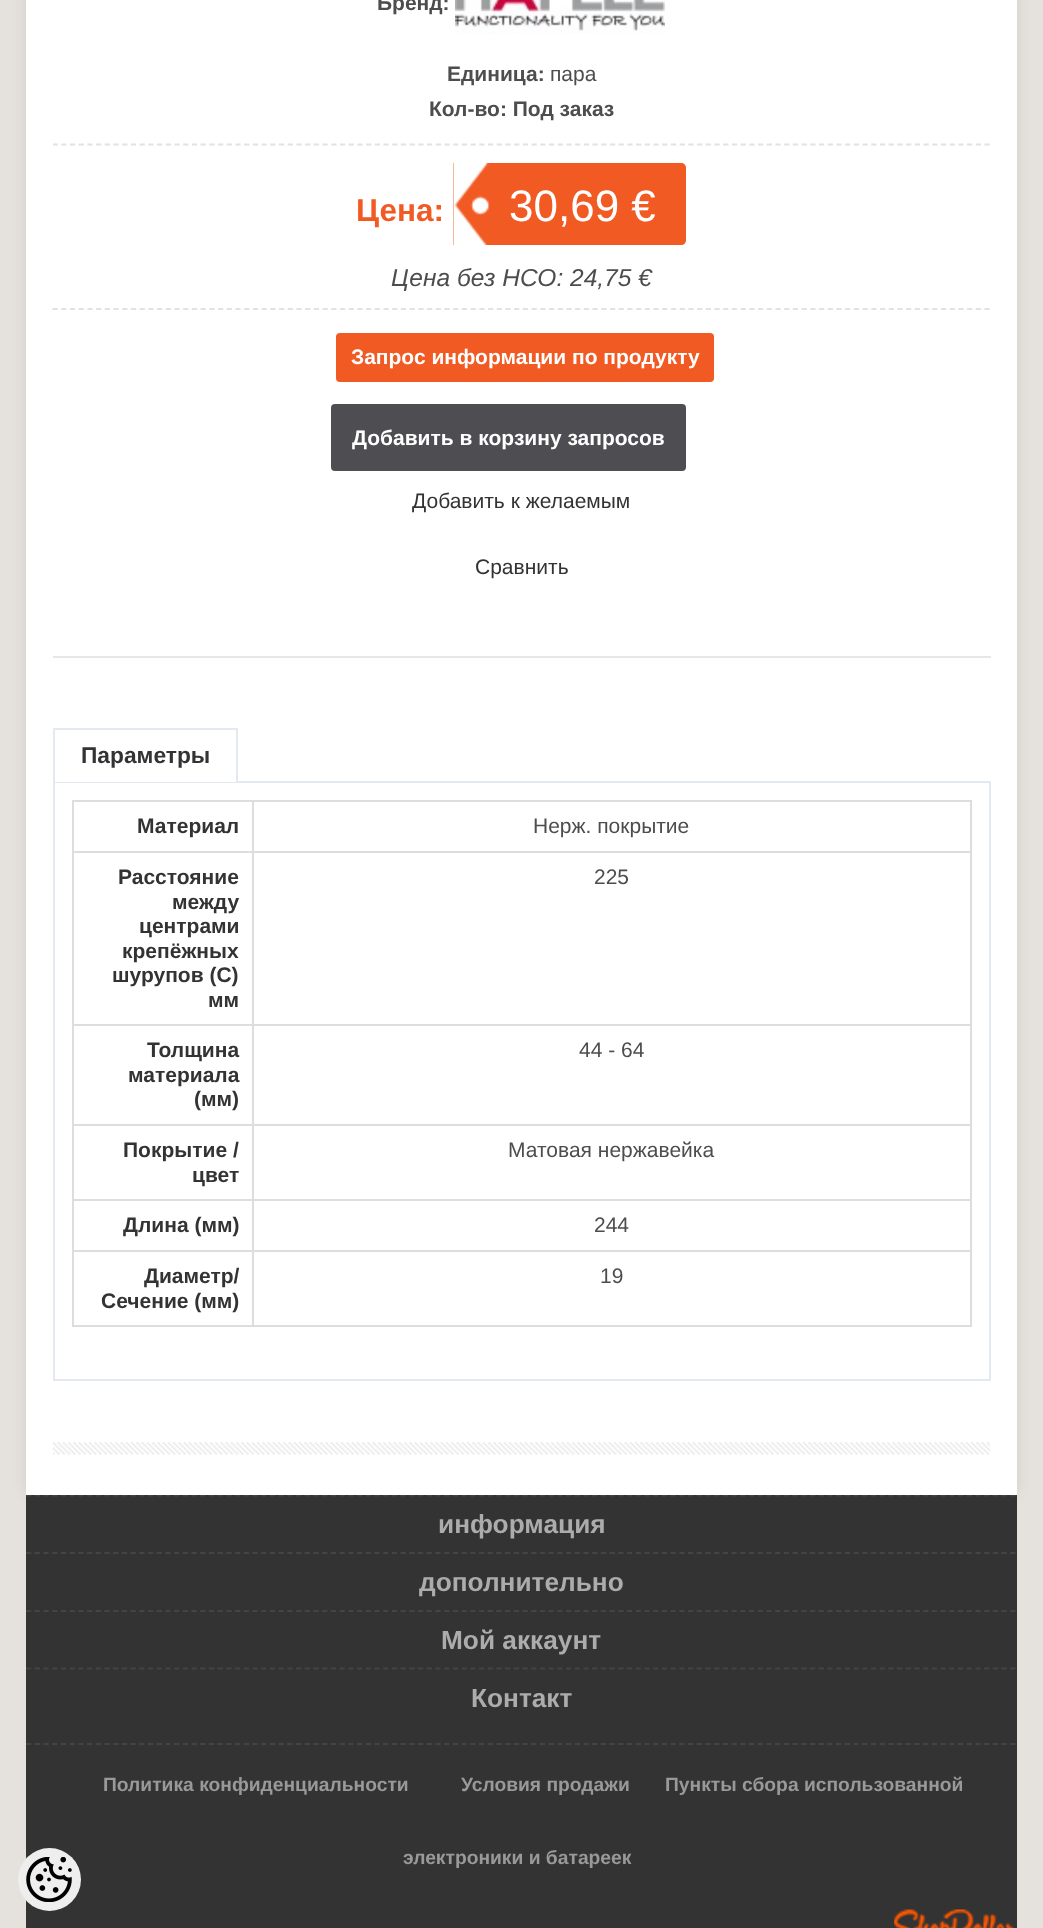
<svg xmlns="http://www.w3.org/2000/svg" width="1043" height="1928">
	<defs>
		<clipPath id="clip1"><rect x="53" y="0" width="938" height="693" /></clipPath>
		<clipPath id="clip2"><path d="M26 1495H1017V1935C1017 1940 1013 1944 1008 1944H35C30 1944 26 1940 26 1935Z" /></clipPath>
	</defs>
	<rect width="100%" height="100%" fill="#E5E1DC" />
	<rect x="26" y="-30" width="991" height="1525" rx="9" fill="#000000" fill-opacity="0.08" filter="blur(7px)" />
	<rect x="26" y="0" width="991" height="1495" fill="#FFFFFF" />
	<g clip-path="url(#clip1)">
		<path d="M52.5 144.5H990.5" fill="none" stroke="#E2E2E2" stroke-width="1.8" stroke-dasharray="5.25 3.46" />
	</g>
	<text x="377" y="10" font-family="Liberation Sans" font-size="21" font-weight="700" fill="#4D4D4D">Бренд:</text>
	<image x="455" y="0" width="210" height="35" href="assets/img1.png" />
	<text x="447" y="81" font-family="Liberation Sans" font-size="21" font-weight="700" fill="#4D4D4D">Единица:</text>
	<text x="550" y="81" font-family="Liberation Sans" font-size="21" fill="#4D4D4D">пара</text>
	<text x="429" y="116" font-family="Liberation Sans" font-size="21" font-weight="700" fill="#4D4D4D">Кол-во: Под заказ</text>
	<path d="M52.5 309H990.5" fill="none" stroke="#E2E2E2" stroke-width="1.8" stroke-dasharray="5.25 3.46" />
	<text x="356" y="221" font-family="Liberation Sans" font-size="31.5" font-weight="700" fill="#F15A23">Цена:</text>
	<path d="M453 163H681C684 163 686 165 686 168V240C686 243 684 245 681 245H453Z" fill="#F15A23" />
	<image x="453" y="163" width="37" height="82" href="assets/img2.png" />
	<text x="509" y="221" font-family="Liberation Sans" font-size="44" fill="#FFFFFF">30,69 €</text>
	<text x="391" y="286" font-family="Liberation Sans" font-size="24.5" font-style="italic" fill="#4D4D4D">Цена без НСО: 24,75 €</text>
	<rect x="336" y="333" width="378" height="49" rx="4" fill="#F15A23" />
	<text x="351" y="364" font-family="Liberation Sans" font-size="21" font-weight="700" fill="#FFFFFF">Запрос информации по продукту</text>
	<rect x="53" y="656" width="938" height="2" fill="#E7E7E7" />
	<rect x="331" y="404" width="355" height="67" rx="4" fill="#4E4E52" />
	<text x="352" y="445" font-family="Liberation Sans" font-size="21" font-weight="700" fill="#FFFFFF">Добавить в корзину запросов</text>
	<g font-family="Liberation Sans" font-size="21" fill="#333333">
		<text x="412" y="508">Добавить к желаемым</text>
		<text x="475" y="574">Сравнить</text>
	</g>
	<rect x="53" y="781" width="938" height="2" fill="#E4E8F1" />
	<rect x="55" y="781" width="181" height="1" fill="#FFFFFF" />
	<rect x="53" y="728" width="185" height="2" fill="#E4E8F1" />
	<rect x="236" y="728" width="2" height="54" fill="#E4E8F1" />
	<rect x="53" y="728" width="2" height="54" fill="#E4E8F1" />
	<text x="81" y="763" font-family="Liberation Sans" font-size="22.75" font-weight="700" fill="#333333">Параметры</text>
	<rect x="989" y="782" width="2" height="599" fill="#E4E8F1" />
	<rect x="53" y="1379" width="938" height="2" fill="#E4E8F1" />
	<rect x="53" y="782" width="2" height="599" fill="#E4E8F1" />
	<rect x="72" y="800" width="899" height="2" fill="#DDDDDD" />
	<rect x="72" y="800" width="2" height="527" fill="#DDDDDD" />
	<rect x="970" y="800" width="2" height="527" fill="#DDDDDD" />
	<rect x="252" y="1325" width="719" height="2" fill="#DDDDDD" />
	<rect x="252" y="1250" width="2" height="77" fill="#DDDDDD" />
	<rect x="252" y="1250" width="719" height="2" fill="#DDDDDD" />
	<rect x="252" y="1199" width="2" height="52" fill="#DDDDDD" />
	<rect x="252" y="1199" width="719" height="2" fill="#DDDDDD" />
	<rect x="252" y="1124" width="2" height="77" fill="#DDDDDD" />
	<rect x="252" y="1124" width="719" height="2" fill="#DDDDDD" />
	<rect x="252" y="1024" width="2" height="101" fill="#DDDDDD" />
	<rect x="252" y="1024" width="719" height="2" fill="#DDDDDD" />
	<rect x="252" y="851" width="2" height="175" fill="#DDDDDD" />
	<rect x="252" y="851" width="719" height="2" fill="#DDDDDD" />
	<rect x="252" y="800" width="2" height="52" fill="#DDDDDD" />
	<rect x="72" y="851" width="182" height="2" fill="#DDDDDD" />
	<text x="137" y="833" font-family="Liberation Sans" font-size="21" font-weight="700" fill="#333333">Материал</text>
	<text x="533" y="833" font-family="Liberation Sans" font-size="21" fill="#4D4D4D">Нерж. покрытие</text>
	<rect x="72" y="1024" width="182" height="2" fill="#DDDDDD" />
	<g font-family="Liberation Sans" font-size="21" font-weight="700" fill="#333333">
		<text x="118" y="884">Расстояние</text>
		<text x="172" y="909">между</text>
		<text x="139" y="933">центрами</text>
		<text x="122" y="958">крепёжных</text>
		<text x="112" y="982">шурупов (С)</text>
		<text x="208" y="1007">мм</text>
	</g>
	<text x="594" y="884" font-family="Liberation Sans" font-size="21" fill="#4D4D4D">225</text>
	<rect x="72" y="1124" width="182" height="2" fill="#DDDDDD" />
	<g font-family="Liberation Sans" font-size="21" font-weight="700" fill="#333333">
		<text x="147" y="1057">Толщина</text>
		<text x="128" y="1082">материала</text>
		<text x="194" y="1106">(мм)</text>
	</g>
	<text x="579" y="1057" font-family="Liberation Sans" font-size="21" fill="#4D4D4D">44 - 64</text>
	<rect x="72" y="1199" width="182" height="2" fill="#DDDDDD" />
	<g font-family="Liberation Sans" font-size="21" font-weight="700" fill="#333333">
		<text x="123" y="1157">Покрытие /</text>
		<text x="192" y="1182">цвет</text>
	</g>
	<text x="508" y="1157" font-family="Liberation Sans" font-size="21" fill="#4D4D4D">Матовая нержавейка</text>
	<rect x="72" y="1250" width="182" height="2" fill="#DDDDDD" />
	<text x="123" y="1232" font-family="Liberation Sans" font-size="21" font-weight="700" fill="#333333">Длина (мм)</text>
	<text x="594" y="1232" font-family="Liberation Sans" font-size="21" fill="#4D4D4D">244</text>
	<rect x="72" y="1325" width="182" height="2" fill="#DDDDDD" />
	<g font-family="Liberation Sans" font-size="21" font-weight="700" fill="#333333">
		<text x="144" y="1283">Диаметр/</text>
		<text x="101" y="1308">Сечение (мм)</text>
	</g>
	<text x="600" y="1283" font-family="Liberation Sans" font-size="21" fill="#4D4D4D">19</text>
	<image x="53" y="1442" width="937" height="13" href="assets/img3.png" />
	<rect x="26" y="1495" width="991" height="433" fill="#333333" />
	<g clip-path="url(#clip2)">
		<path d="M26 1495.5H1017" fill="none" stroke="#444444" stroke-width="1.8" stroke-dasharray="5.25 3.46" />
	</g>
	<text x="438" y="1533" font-family="Liberation Sans" font-size="26.25" font-weight="700" fill="#ACACAC">информация</text>
	<path d="M26 1553H1017" fill="none" stroke="#444444" stroke-width="1.8" stroke-dasharray="5.25 3.46" />
	<text x="419" y="1591" font-family="Liberation Sans" font-size="26.25" font-weight="700" fill="#ACACAC">дополнительно</text>
	<path d="M26 1611H1017" fill="none" stroke="#444444" stroke-width="1.8" stroke-dasharray="5.25 3.46" />
	<text x="441" y="1649" font-family="Liberation Sans" font-size="26.25" font-weight="700" fill="#ACACAC">Мой аккаунт</text>
	<path d="M26 1668.5H1017" fill="none" stroke="#444444" stroke-width="1.8" stroke-dasharray="5.25 3.46" />
	<text x="471" y="1707" font-family="Liberation Sans" font-size="26.25" font-weight="700" fill="#ACACAC">Контакт</text>
	<path d="M26 1744H1017" fill="none" stroke="#444444" stroke-width="1.8" stroke-dasharray="5.25 3.46" />
	<g font-family="Liberation Sans" font-size="19.25" font-weight="700" fill="#999999">
		<text x="103" y="1791">Политика конфиденциальности</text>
		<text x="461" y="1791">Условия продажи</text>
		<text x="665" y="1791">Пункты сбора использованной</text>
		<text x="403" y="1864">электроники и батареек</text>
	</g>
	<image x="894" y="1909" width="123" height="19" href="assets/img4.png" />
	<circle cx="49.5" cy="1879.5" r="31.5" fill="#EEEEEE" />
	<image x="26" y="1857" width="46" height="45" href="assets/img5.png" />
</svg>
